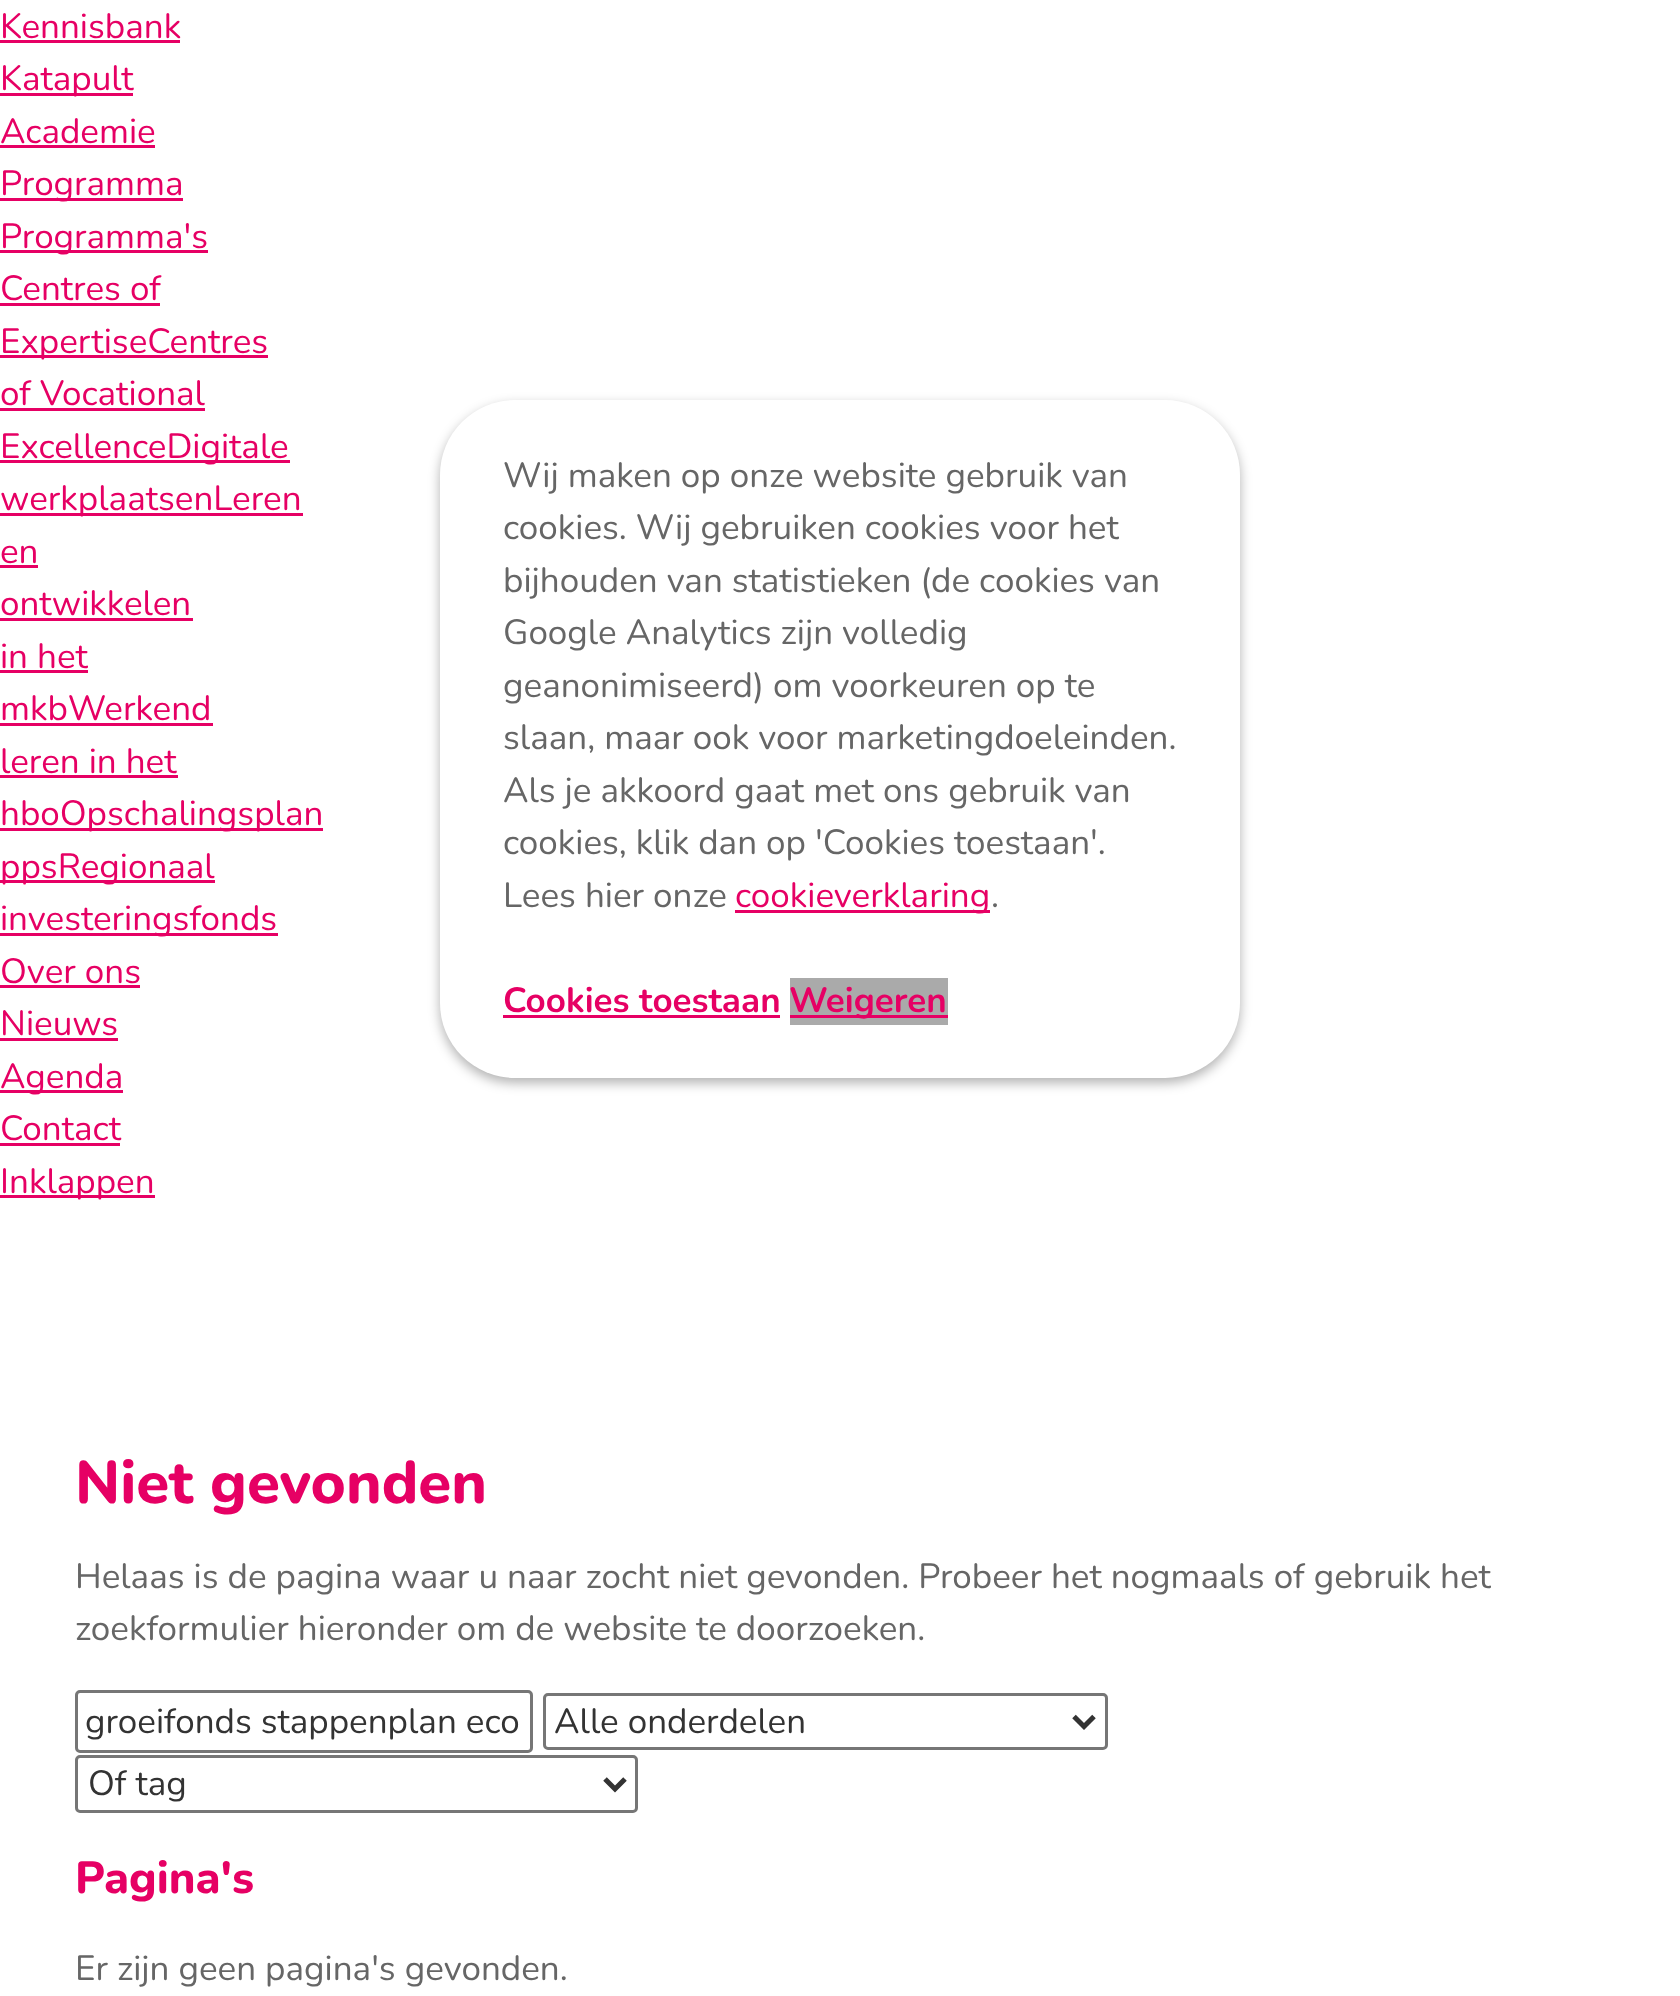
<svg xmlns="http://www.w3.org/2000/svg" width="1680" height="1996">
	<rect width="100%" height="100%" fill="#FFFFFF" />
	<text x="0" y="38" font-family="Nunito" font-size="35" fill="#E60064">Kennisbank</text>
	<rect x="0" y="40" width="180" height="3" fill="#E60064" />
	<rect x="0" y="93" width="133" height="3" fill="#E60064" />
	<g font-family="Nunito" font-size="35" fill="#E60064">
		<text x="0" y="90">Katapult</text>
		<text x="0" y="143">Academie</text>
	</g>
	<rect x="0" y="145" width="155" height="3" fill="#E60064" />
	<rect x="0" y="198" width="183" height="3" fill="#E60064" />
	<text x="0" y="195" font-family="Nunito" font-size="35" fill="#E60064">Programma</text>
	<rect x="0" y="250" width="208" height="3" fill="#E60064" />
	<g font-family="Nunito" font-size="35" fill="#E60064">
		<text x="0" y="248">Programma's</text>
		<text x="0" y="300">Centres of</text>
	</g>
	<rect x="0" y="303" width="160" height="3" fill="#E60064" />
	<rect x="0" y="355" width="268" height="3" fill="#E60064" />
	<g font-family="Nunito" font-size="35" fill="#E60064">
		<text x="0" y="353">ExpertiseCentres</text>
		<text x="0" y="405">of Vocational</text>
	</g>
	<rect x="0" y="408" width="205" height="3" fill="#E60064" />
	<rect x="0" y="460" width="290" height="3" fill="#E60064" />
	<text x="0" y="458" font-family="Nunito" font-size="35" fill="#E60064">ExcellenceDigitale</text>
	<rect x="0" y="513" width="303" height="3" fill="#E60064" />
	<g font-family="Nunito" font-size="35" fill="#E60064">
		<text x="0" y="510">werkplaatsenLeren</text>
		<text x="0" y="563">en</text>
	</g>
	<rect x="0" y="565" width="38" height="3" fill="#E60064" />
	<text x="0" y="615" font-family="Nunito" font-size="35" fill="#E60064">ontwikkelen</text>
	<rect x="0" y="618" width="193" height="3" fill="#E60064" />
	<text x="0" y="668" font-family="Nunito" font-size="35" fill="#E60064">in het</text>
	<rect x="0" y="670" width="88" height="3" fill="#E60064" />
	<text x="0" y="720" font-family="Nunito" font-size="35" fill="#E60064">mkbWerkend</text>
	<rect x="0" y="723" width="213" height="3" fill="#E60064" />
	<text x="0" y="773" font-family="Nunito" font-size="35" fill="#E60064">leren in het</text>
	<rect x="0" y="775" width="178" height="3" fill="#E60064" />
	<rect x="0" y="828" width="323" height="3" fill="#E60064" />
	<text x="0" y="825" font-family="Nunito" font-size="35" fill="#E60064">hboOpschalingsplan</text>
	<rect x="0" y="880" width="215" height="3" fill="#E60064" />
	<text x="0" y="878" font-family="Nunito" font-size="35" fill="#E60064">ppsRegionaal</text>
	<rect x="0" y="933" width="278" height="3" fill="#E60064" />
	<g font-family="Nunito" font-size="35" fill="#E60064">
		<text x="0" y="930">investeringsfonds</text>
		<text x="0" y="983">Over ons</text>
	</g>
	<rect x="0" y="985" width="140" height="3" fill="#E60064" />
	<text x="0" y="1035" font-family="Nunito" font-size="35" fill="#E60064">Nieuws</text>
	<rect x="0" y="1038" width="118" height="3" fill="#E60064" />
	<rect x="0" y="1090" width="123" height="3" fill="#E60064" />
	<g font-family="Nunito" font-size="35" fill="#E60064">
		<text x="0" y="1088">Agenda</text>
		<text x="0" y="1140">Contact</text>
	</g>
	<rect x="0" y="1143" width="120" height="3" fill="#E60064" />
	<rect x="0" y="1195" width="155" height="3" fill="#E60064" />
	<text x="0" y="1193" font-family="Nunito" font-size="35" fill="#E60064">Inklappen</text>
	<rect x="440" y="405" width="800" height="678" rx="75" fill="#000000" fill-opacity="0.3" filter="blur(6px)" />
	<rect x="440" y="400" width="800" height="678" rx="75" fill="#FFFFFF" />
	<g font-family="Nunito" font-size="35" fill="#666666">
		<text x="503" y="487">Wij maken op onze website gebruik van</text>
		<text x="503" y="539">cookies. Wij gebruiken cookies voor het</text>
		<text x="503" y="592">bijhouden van statistieken (de cookies van</text>
		<text x="503" y="644">Google Analytics zijn volledig</text>
		<text x="503" y="697">geanonimiseerd) om voorkeuren op te</text>
		<text x="503" y="749">slaan, maar ook voor marketingdoeleinden.</text>
		<text x="503" y="802">Als je akkoord gaat met ons gebruik van</text>
		<text x="503" y="854">cookies, klik dan op 'Cookies toestaan'.</text>
		<text x="503" y="907">Lees hier onze</text>
	</g>
	<rect x="735" y="910" width="255" height="3" fill="#E60064" />
	<text x="735" y="907" font-family="Nunito" font-size="35" fill="#E60064">cookieverklaring</text>
	<text x="991" y="907" font-family="Nunito" font-size="35" fill="#666666">.</text>
	<text x="503" y="1012" font-family="Nunito" font-size="35" font-weight="700" fill="#E60064">Cookies toestaan</text>
	<rect x="503" y="1015" width="277" height="3" fill="#E60064" />
	<rect x="790" y="978" width="158" height="47" fill="#AAAAAA" />
	<rect x="790" y="1015" width="158" height="3" fill="#E60064" />
	<text x="789" y="1012" font-family="Nunito" font-size="35" font-weight="700" fill="#E60064">Weigeren</text>
	<text x="75" y="1503" font-family="Nunito" font-size="60" font-weight="800" fill="#E60064">Niet gevonden</text>
	<g font-family="Nunito" font-size="35" fill="#666666">
		<text x="75" y="1588">Helaas is de pagina waar u naar zocht niet gevonden. Probeer het nogmaals of gebruik het</text>
		<text x="75" y="1640">zoekformulier hieronder om de website te doorzoeken.</text>
	</g>
	<rect x="76.5" y="1691.5" width="455" height="60" rx="3.5" fill="none" stroke="#767676" stroke-width="3" />
	<text x="85" y="1733" font-family="Nunito" font-size="35" fill="#333333">groeifonds stappenplan eco</text>
	<rect x="544.5" y="1694.5" width="562" height="54" rx="3.5" fill="none" stroke="#767676" stroke-width="3" />
	<path d="M1074 1716.5L1084 1726.5L1094 1716.5" fill="none" stroke="#333333" stroke-width="5" />
	<text x="554" y="1733" font-family="Nunito" font-size="35" fill="#333333">Alle onderdelen</text>
	<rect x="76.5" y="1756.5" width="560" height="55" rx="3.5" fill="none" stroke="#767676" stroke-width="3" />
	<path d="M605 1779L615 1789L625 1779" fill="none" stroke="#333333" stroke-width="5" />
	<text x="88" y="1795" font-family="Nunito" font-size="35" fill="#333333">Of tag</text>
	<text x="75" y="1893" font-family="Nunito" font-size="45" font-weight="800" fill="#E60064">Pagina's</text>
	<text x="75" y="1980" font-family="Nunito" font-size="35" fill="#666666">Er zijn geen pagina's gevonden.</text>
</svg>
